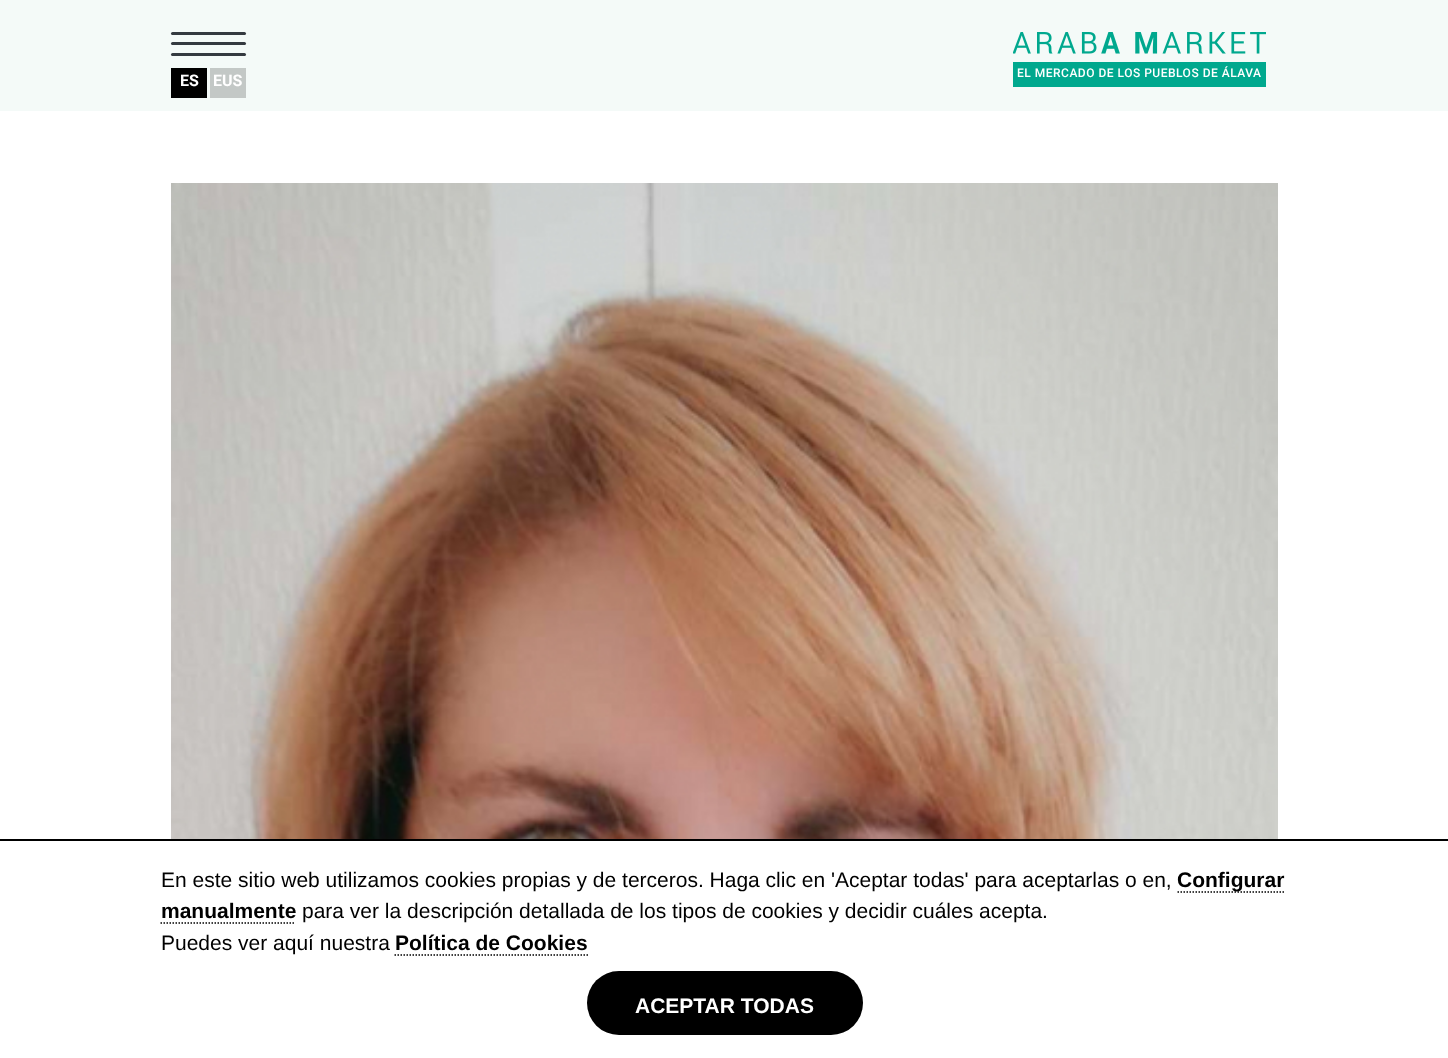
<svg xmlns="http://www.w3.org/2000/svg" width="1448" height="1058">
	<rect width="100%" height="100%" fill="#FFFFFF" />
	<rect x="0" y="0" width="1448" height="111" fill="#F4FAF8" />
	<image x="1013" y="32" width="253" height="22" href="assets/img1.png" />
	<rect x="1013" y="62" width="253" height="25" fill="#00A88E" />
	<text x="1017" y="77" font-family="Roboto" font-size="12" font-weight="500" letter-spacing="0.5" fill="#FFFFFF">EL MERCADO DE LOS PUEBLOS DE ÁLAVA</text>
	<rect x="171" y="32" width="75" height="3" rx="1.5" fill="#343A40" />
	<rect x="171" y="42" width="75" height="3" rx="1.5" fill="#343A40" />
	<rect x="171" y="53" width="75" height="3" rx="1.5" fill="#343A40" />
	<rect x="171" y="68" width="36" height="30" fill="#000000" />
	<text x="180" y="86" font-family="Roboto" font-size="16" font-weight="700" fill="#FFFFFF">ES</text>
	<rect x="210" y="68" width="36" height="30" fill="#C3C8C6" />
	<text x="213" y="86" font-family="Roboto" font-size="16" font-weight="700" fill="#FFFFFF">EUS</text>
	<image x="171" y="183" width="1107" height="656" href="assets/img2.png" />
	<rect x="0" y="839" width="1448" height="2" fill="#000000" />
	<text x="161" y="887" font-family="Liberation Sans" font-size="21" fill="#000000">En este sitio web utilizamos cookies propias y de terceros. Haga clic en 'Aceptar todas' para aceptarlas o en,</text>
	<path d="M1177.5 892H1284" fill="none" stroke="#000000" stroke-width="1.5" stroke-dasharray="1.5 1.5" />
	<g font-family="Liberation Sans" font-size="21" font-weight="700" fill="#000000">
		<text x="1177" y="887">Configurar</text>
		<text x="161" y="918">manualmente</text>
	</g>
	<path d="M160.5 923H295.5" fill="none" stroke="#000000" stroke-width="1.5" stroke-dasharray="1.5 1.5" />
	<g font-family="Liberation Sans" font-size="21" fill="#000000">
		<text x="302" y="918">para ver la descripción detallada de los tipos de cookies y decidir cuáles acepta.</text>
		<text x="161" y="950">Puedes ver aquí nuestra</text>
	</g>
	<text x="395" y="950" font-family="Liberation Sans" font-size="21" font-weight="700" fill="#000000">Política de Cookies</text>
	<path d="M394.5 955H588" fill="none" stroke="#000000" stroke-width="1.5" stroke-dasharray="1.5 1.5" />
	<rect x="587" y="971" width="276" height="64" rx="32" fill="#000000" />
	<text x="635" y="1013" font-family="Liberation Sans" font-size="21" font-weight="700" fill="#FFFFFF">ACEPTAR TODAS</text>
</svg>
